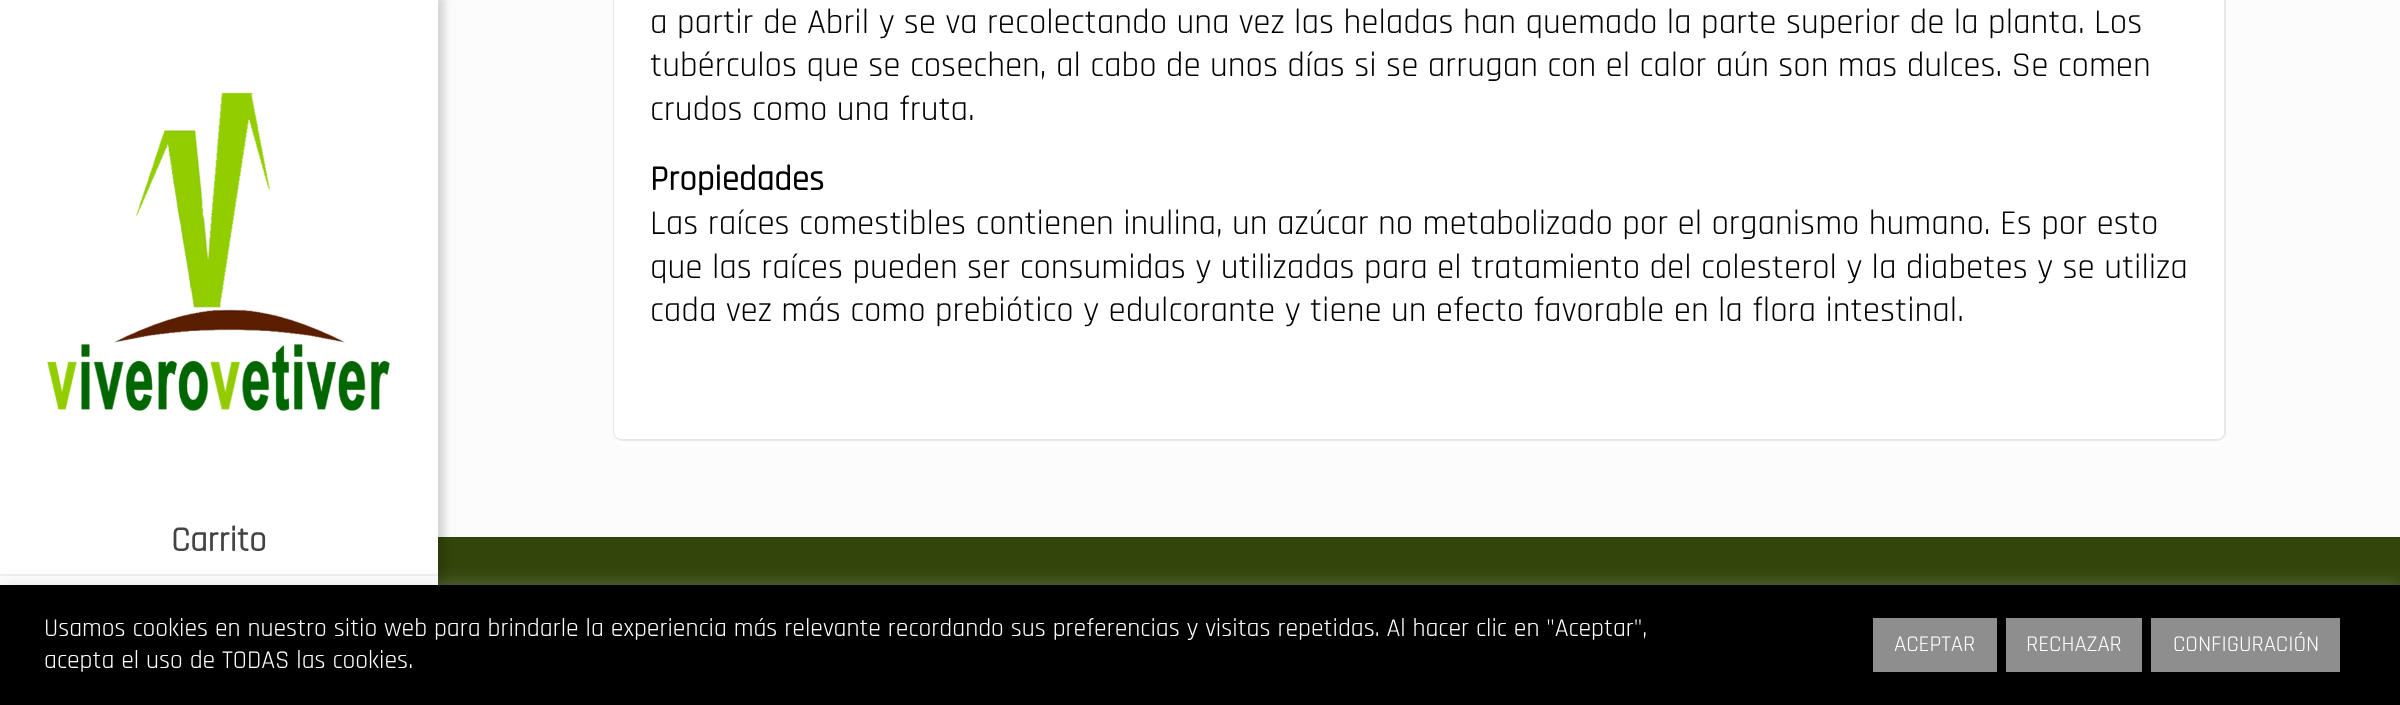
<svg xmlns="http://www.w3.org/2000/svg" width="2400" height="705">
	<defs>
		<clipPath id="clip1"><rect x="614" y="-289" width="1610" height="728" rx="7" /></clipPath>
	</defs>
	<rect width="100%" height="100%" fill="#FCFCFC" />
	<rect x="614" y="-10" width="1611" height="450" rx="8" fill="none" stroke="#E8E8E8" stroke-width="2" />
	<g clip-path="url(#clip1)">
		<path d="M614-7H2224V432C2224 436 2221 439 2217 439H621C617 439 614 436 614 432Z" fill="#FFFFFF" />
	</g>
	<g font-family="Rajdhani" font-size="35" fill="#000000">
		<text x="650" y="33">a partir de Abril y se va recolectando una vez las heladas han quemado la parte superior de la planta. Los</text>
		<text x="650" y="76">tubérculos que se cosechen, al cabo de unos días si se arrugan con el calor aún son mas dulces. Se comen</text>
		<text x="650" y="120">crudos como una fruta.</text>
	</g>
	<text x="650" y="190" font-family="Rajdhani" font-size="35" font-weight="700" fill="#000000">Propiedades</text>
	<g font-family="Rajdhani" font-size="35" fill="#000000">
		<text x="650" y="234">Las raíces comestibles contienen inulina, un azúcar no metabolizado por el organismo humano. Es por esto</text>
		<text x="650" y="278">que las raíces pueden ser consumidas y utilizadas para el tratamiento del colesterol y la diabetes y se utiliza</text>
		<text x="650" y="321">cada vez más como prebiótico y edulcorante y tiene un efecto favorable en la flora intestinal.</text>
	</g>
	<rect x="438" y="537" width="1962" height="48" fill="#32460B" />
	<rect x="0" y="-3" width="445" height="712" fill="#000000" fill-opacity="0.15" filter="blur(3.5px)" />
	<rect x="0" y="0" width="438" height="585" fill="#FFFFFF" />
	<image x="47" y="92" width="343" height="319" href="assets/img1.png" />
	<rect x="0" y="574" width="438" height="2" fill="#F2F2F2" />
	<text x="171" y="551" font-family="Rajdhani" font-size="35" font-weight="700" fill="#444444">Carrito</text>
	<rect x="0" y="583" width="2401" height="121" fill="#ACABAB" fill-opacity="0.3" filter="blur(9px)" />
	<rect x="0" y="585" width="2400" height="120" fill="#000000" />
	<g font-family="Rajdhani" font-size="25.67" fill="#FFFFFF">
		<text x="44" y="636">Usamos cookies en nuestro sitio web para brindarle la experiencia más relevante recordando sus preferencias y visitas repetidas. Al hacer clic en "Aceptar",</text>
		<text x="44" y="668">acepta el uso de TODAS las cookies.</text>
	</g>
	<rect x="1873" y="618" width="124" height="54" fill="#8E8E8E" />
	<text x="1894" y="651" font-family="Rajdhani" font-size="22.75" fill="#FFFFFF">ACEPTAR</text>
	<rect x="2006" y="618" width="136" height="54" fill="#8E8E8E" />
	<text x="2026" y="651" font-family="Rajdhani" font-size="22.75" fill="#FFFFFF">RECHAZAR</text>
	<rect x="2151" y="618" width="189" height="54" fill="#8E8E8E" />
	<text x="2173" y="651" font-family="Rajdhani" font-size="22.75" fill="#FFFFFF">CONFIGURACIÓN</text>
</svg>
